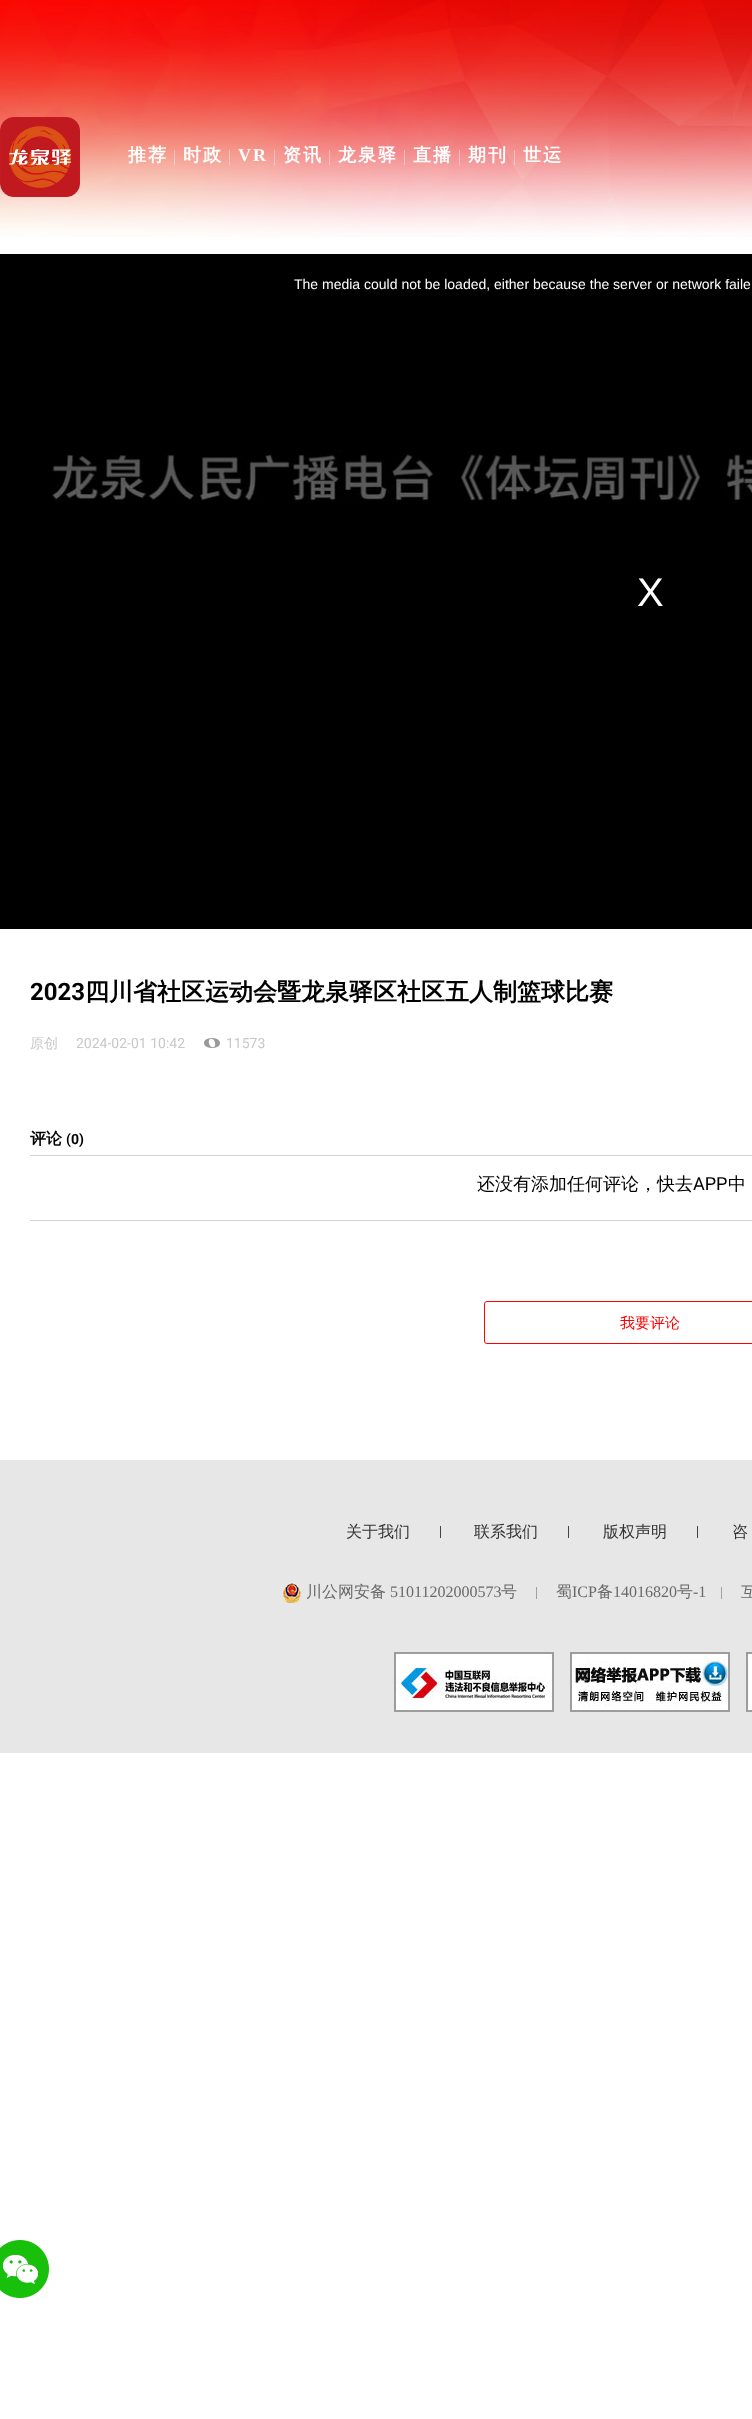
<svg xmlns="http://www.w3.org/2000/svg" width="752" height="2419">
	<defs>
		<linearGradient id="g1" gradientUnits="userSpaceOnUse" x1="650" y1="254" x2="650" y2="929"><stop offset="0" stop-color="#000000" stop-opacity="0.8" /><stop offset="1" stop-color="#000000" stop-opacity="0" /></linearGradient>
	</defs>
	<rect width="100%" height="100%" fill="#FFFFFF" />
	<image x="0" y="0" width="752" height="237" href="assets/img1.png" />
	<image x="0" y="117" width="80" height="80" href="assets/img2.png" />
	<text x="128" y="161" font-family="WenQuanYi Zen Hei" font-size="18" font-weight="700" letter-spacing="2" fill="#FFFFFF">推荐</text>
	<rect x="174" y="150" width="1" height="15" fill="#FFFFFF" fill-opacity="0.4" />
	<text x="183" y="161" font-family="WenQuanYi Zen Hei" font-size="18" font-weight="700" letter-spacing="2" fill="#FFFFFF">时政</text>
	<rect x="229" y="150" width="1" height="15" fill="#FFFFFF" fill-opacity="0.4" />
	<text x="238" y="161" font-family="Liberation Serif" font-size="18" font-weight="700" letter-spacing="2" fill="#FFFFFF">VR</text>
	<rect x="274" y="150" width="1" height="15" fill="#FFFFFF" fill-opacity="0.4" />
	<text x="283" y="161" font-family="WenQuanYi Zen Hei" font-size="18" font-weight="700" letter-spacing="2" fill="#FFFFFF">资讯</text>
	<rect x="329" y="150" width="1" height="15" fill="#FFFFFF" fill-opacity="0.4" />
	<text x="338" y="161" font-family="WenQuanYi Zen Hei" font-size="18" font-weight="700" letter-spacing="2" fill="#FFFFFF">龙泉驿</text>
	<rect x="404" y="150" width="1" height="15" fill="#FFFFFF" fill-opacity="0.4" />
	<text x="413" y="161" font-family="WenQuanYi Zen Hei" font-size="18" font-weight="700" letter-spacing="2" fill="#FFFFFF">直播</text>
	<rect x="459" y="150" width="1" height="15" fill="#FFFFFF" fill-opacity="0.4" />
	<text x="468" y="161" font-family="WenQuanYi Zen Hei" font-size="18" font-weight="700" letter-spacing="2" fill="#FFFFFF">期刊</text>
	<rect x="514" y="150" width="1" height="15" fill="#FFFFFF" fill-opacity="0.4" />
	<text x="523" y="161" font-family="WenQuanYi Zen Hei" font-size="18" font-weight="700" letter-spacing="2" fill="#FFFFFF">世运</text>
	<rect x="0" y="254" width="752" height="675" fill="#000000" />
	<image x="51" y="450" width="701" height="53" href="assets/img3.png" />
	<rect x="51" y="450" width="701" height="53" fill="url(#g1)" />
	<text x="294" y="289" font-family="Liberation Sans" font-size="14" fill="#FFFFFF">The media could not be loaded, either because the server or network faile</text>
	<text x="637" y="606" font-family="Liberation Sans" font-size="40" fill="#FFFFFF">X</text>
	<text x="30" y="1000" font-family="Roboto" font-size="24" font-weight="700" fill="#000000">2023</text>
	<text x="85" y="1000" font-family="WenQuanYi Zen Hei" font-size="24" font-weight="700" fill="#000000">四川省社区运动会暨龙泉驿区社区五人制篮球比赛</text>
	<text x="30" y="1048" font-family="WenQuanYi Zen Hei" font-size="14" font-weight="500" fill="#C8C8C8">原创</text>
	<text x="76" y="1048" font-family="Roboto" font-size="14" fill="#C8C8C8">2024-02-01 10:42</text>
	<image x="204" y="1038" width="16" height="10" href="assets/img4.png" />
	<text x="226" y="1048" font-family="Roboto" font-size="14" fill="#C8C8C8">11573</text>
	<rect x="30" y="1155" width="722" height="1" fill="#D3D3D3" />
	<text x="30" y="1144" font-family="WenQuanYi Zen Hei" font-size="16" font-weight="700" fill="#000000">评论</text>
	<text x="66" y="1144" font-family="Roboto" font-size="14" font-weight="700" fill="#000000">(0)</text>
	<rect x="30" y="1220" width="722" height="1" fill="#D3D3D3" />
	<text x="477" y="1190" font-family="WenQuanYi Zen Hei" font-size="18" font-weight="500" fill="#000000">还没有添加任何评论，快去</text>
	<text x="693" y="1190" font-family="Roboto" font-size="18" fill="#000000">APP</text>
	<text x="728" y="1190" font-family="WenQuanYi Zen Hei" font-size="18" font-weight="500" fill="#000000">中</text>
	<rect x="484.5" y="1301.5" width="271" height="42" rx="2.5" fill="none" stroke="#FF0000" />
	<text x="620" y="1328" font-family="WenQuanYi Zen Hei" font-size="15" font-weight="500" fill="#FF0000">我要评论</text>
	<rect x="0" y="1460" width="752" height="293" fill="#E7E7E7" />
	<text x="346" y="1537" font-family="WenQuanYi Zen Hei" font-size="16" font-weight="500" fill="#333333">关于我们</text>
	<rect x="440" y="1526" width="1" height="12" fill="#434343" />
	<text x="474" y="1537" font-family="WenQuanYi Zen Hei" font-size="16" font-weight="500" fill="#333333">联系我们</text>
	<rect x="568" y="1526" width="1" height="12" fill="#434343" />
	<text x="603" y="1537" font-family="WenQuanYi Zen Hei" font-size="16" font-weight="500" fill="#333333">版权声明</text>
	<rect x="697" y="1526" width="1" height="12" fill="#434343" />
	<text x="732" y="1537" font-family="WenQuanYi Zen Hei" font-size="16" font-weight="500" fill="#333333">咨</text>
	<image x="283" y="1583" width="18" height="20" href="assets/img5.png" />
	<text x="306" y="1597" font-family="WenQuanYi Zen Hei" font-size="16" font-weight="500" fill="#696969">川公网安备</text>
	<text x="390" y="1597" font-family="Liberation Serif" font-size="16" fill="#696969">51011202000573</text>
	<text x="501" y="1597" font-family="WenQuanYi Zen Hei" font-size="16" font-weight="500" fill="#696969">号</text>
	<rect x="536" y="1587" width="1" height="12" fill="#A0A0A0" />
	<text x="556" y="1597" font-family="WenQuanYi Zen Hei" font-size="16" font-weight="500" fill="#696969">蜀</text>
	<text x="572" y="1597" font-family="Liberation Serif" font-size="16" fill="#696969">ICP</text>
	<text x="597" y="1597" font-family="WenQuanYi Zen Hei" font-size="16" font-weight="500" fill="#696969">备</text>
	<text x="613" y="1597" font-family="Liberation Serif" font-size="16" fill="#696969">14016820</text>
	<text x="677" y="1597" font-family="WenQuanYi Zen Hei" font-size="16" font-weight="500" fill="#696969">号</text>
	<text x="693" y="1597" font-family="Liberation Serif" font-size="16" fill="#696969">-1</text>
	<rect x="721" y="1587" width="1" height="12" fill="#A0A0A0" />
	<text x="741" y="1597" font-family="WenQuanYi Zen Hei" font-size="15" font-weight="500" fill="#696969">互</text>
	<image x="394" y="1652" width="160" height="60" href="assets/img6.png" />
	<image x="570" y="1652" width="160" height="60" href="assets/img7.png" />
	<image x="746" y="1652" width="6" height="60" href="assets/img8.png" />
	<image x="0" y="2240" width="49" height="58" href="assets/img9.png" />
</svg>
